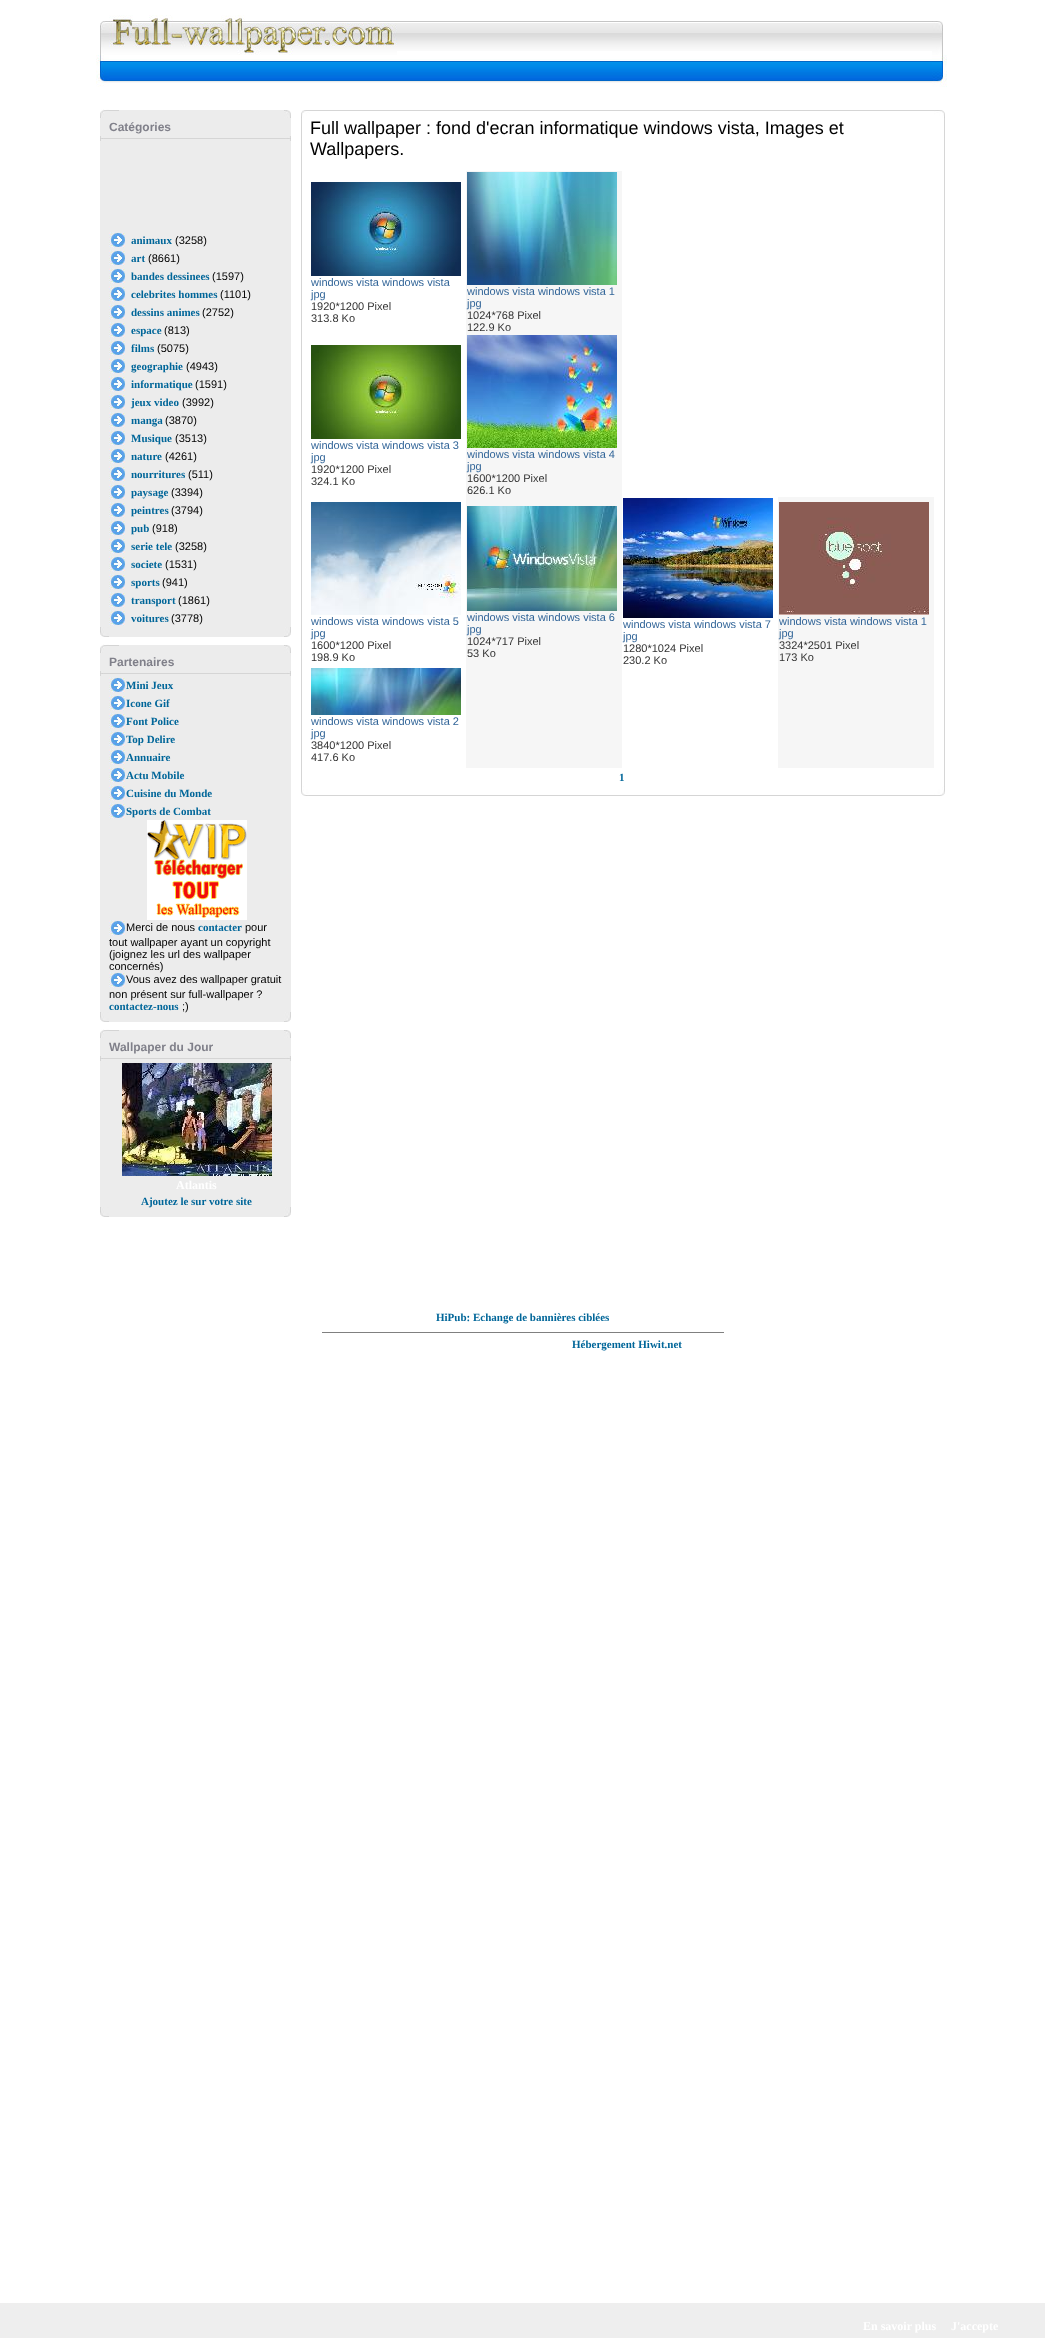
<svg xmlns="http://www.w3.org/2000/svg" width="1045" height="2338">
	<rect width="100%" height="100%" fill="#FFFFFF" />
	<image x="100" y="21" width="9" height="34" href="assets/img1.png" />
	<image x="397" y="21" width="2" height="30" href="assets/img2.png" />
	<image x="109" y="15" width="288" height="40" href="assets/img3.png" />
	<image x="399" y="21" width="533" height="30" href="assets/img4.png" />
	<image x="932" y="21" width="11" height="34" href="assets/img5.png" />
	<image x="96" y="55" width="13" height="32" href="assets/img6.png" />
	<image x="109" y="59" width="533" height="24" href="assets/img7.png" />
	<image x="642" y="59" width="290" height="24" href="assets/img8.png" />
	<image x="932" y="55" width="15" height="32" href="assets/img9.png" />
	<image x="100" y="109" width="9" height="9" href="assets/img10.png" />
	<rect x="109" y="110" width="175" height="8" fill="#ECECEC" />
	<rect x="109" y="110" width="10" height="1" fill="#D4D4D4" />
	<image x="284" y="110" width="7" height="8" href="assets/img11.png" />
	<rect x="100" y="118" width="191" height="18" fill="#ECECEC" />
	<text x="109" y="131" font-family="Liberation Sans" font-size="12" font-weight="700" fill="#80808A">Catégories</text>
	<image x="100" y="136" width="9" height="5" href="assets/img12.png" />
	<image x="109" y="136" width="175" height="5" href="assets/img13.png" />
	<image x="284" y="136" width="7" height="5" href="assets/img14.png" />
	<rect x="100" y="141" width="191" height="90" fill="#ECECEC" />
	<rect x="100" y="231" width="191" height="18" fill="#ECECEC" />
	<image x="109" y="232" width="16" height="16" href="assets/img15.png" />
	<text x="131" y="244" font-family="Liberation Serif" font-size="11" font-weight="700" fill="#006699">animaux</text>
	<text x="175" y="244" font-family="Liberation Sans" font-size="11" fill="#000000">(3258)</text>
	<rect x="100" y="249" width="191" height="18" fill="#ECECEC" />
	<image x="109" y="250" width="16" height="16" href="assets/img15.png" />
	<text x="131" y="262" font-family="Liberation Serif" font-size="11" font-weight="700" fill="#006699">art</text>
	<text x="148" y="262" font-family="Liberation Sans" font-size="11" fill="#000000">(8661)</text>
	<rect x="100" y="267" width="191" height="18" fill="#ECECEC" />
	<image x="109" y="268" width="16" height="16" href="assets/img15.png" />
	<text x="131" y="280" font-family="Liberation Serif" font-size="11" font-weight="700" fill="#006699">bandes dessinees</text>
	<text x="212" y="280" font-family="Liberation Sans" font-size="11" fill="#000000">(1597)</text>
	<rect x="100" y="285" width="191" height="18" fill="#ECECEC" />
	<image x="109" y="286" width="16" height="16" href="assets/img15.png" />
	<text x="131" y="298" font-family="Liberation Serif" font-size="11" font-weight="700" fill="#006699">celebrites hommes</text>
	<text x="220" y="298" font-family="Liberation Sans" font-size="11" fill="#000000">(1101)</text>
	<rect x="100" y="303" width="191" height="18" fill="#ECECEC" />
	<image x="109" y="304" width="16" height="16" href="assets/img15.png" />
	<text x="131" y="316" font-family="Liberation Serif" font-size="11" font-weight="700" fill="#006699">dessins animes</text>
	<text x="202" y="316" font-family="Liberation Sans" font-size="11" fill="#000000">(2752)</text>
	<rect x="100" y="321" width="191" height="18" fill="#ECECEC" />
	<image x="109" y="322" width="16" height="16" href="assets/img15.png" />
	<text x="131" y="334" font-family="Liberation Serif" font-size="11" font-weight="700" fill="#006699">espace</text>
	<text x="164" y="334" font-family="Liberation Sans" font-size="11" fill="#000000">(813)</text>
	<rect x="100" y="339" width="191" height="18" fill="#ECECEC" />
	<image x="109" y="340" width="16" height="16" href="assets/img15.png" />
	<text x="131" y="352" font-family="Liberation Serif" font-size="11" font-weight="700" fill="#006699">films</text>
	<text x="157" y="352" font-family="Liberation Sans" font-size="11" fill="#000000">(5075)</text>
	<rect x="100" y="357" width="191" height="18" fill="#ECECEC" />
	<image x="109" y="358" width="16" height="16" href="assets/img15.png" />
	<text x="131" y="370" font-family="Liberation Serif" font-size="11" font-weight="700" fill="#006699">geographie</text>
	<text x="186" y="370" font-family="Liberation Sans" font-size="11" fill="#000000">(4943)</text>
	<rect x="100" y="375" width="191" height="18" fill="#ECECEC" />
	<image x="109" y="376" width="16" height="16" href="assets/img15.png" />
	<text x="131" y="388" font-family="Liberation Serif" font-size="11" font-weight="700" fill="#006699">informatique</text>
	<text x="195" y="388" font-family="Liberation Sans" font-size="11" fill="#000000">(1591)</text>
	<rect x="100" y="393" width="191" height="18" fill="#ECECEC" />
	<image x="109" y="394" width="16" height="16" href="assets/img15.png" />
	<text x="131" y="406" font-family="Liberation Serif" font-size="11" font-weight="700" fill="#006699">jeux video</text>
	<text x="182" y="406" font-family="Liberation Sans" font-size="11" fill="#000000">(3992)</text>
	<rect x="100" y="411" width="191" height="18" fill="#ECECEC" />
	<image x="109" y="412" width="16" height="16" href="assets/img15.png" />
	<text x="131" y="424" font-family="Liberation Serif" font-size="11" font-weight="700" fill="#006699">manga</text>
	<text x="165" y="424" font-family="Liberation Sans" font-size="11" fill="#000000">(3870)</text>
	<rect x="100" y="429" width="191" height="18" fill="#ECECEC" />
	<image x="109" y="430" width="16" height="16" href="assets/img15.png" />
	<text x="131" y="442" font-family="Liberation Serif" font-size="11" font-weight="700" fill="#006699">Musique</text>
	<text x="175" y="442" font-family="Liberation Sans" font-size="11" fill="#000000">(3513)</text>
	<rect x="100" y="447" width="191" height="18" fill="#ECECEC" />
	<image x="109" y="448" width="16" height="16" href="assets/img15.png" />
	<text x="131" y="460" font-family="Liberation Serif" font-size="11" font-weight="700" fill="#006699">nature</text>
	<text x="165" y="460" font-family="Liberation Sans" font-size="11" fill="#000000">(4261)</text>
	<rect x="100" y="465" width="191" height="18" fill="#ECECEC" />
	<image x="109" y="466" width="16" height="16" href="assets/img15.png" />
	<text x="131" y="478" font-family="Liberation Serif" font-size="11" font-weight="700" fill="#006699">nourritures</text>
	<text x="188" y="478" font-family="Liberation Sans" font-size="11" fill="#000000">(511)</text>
	<rect x="100" y="483" width="191" height="18" fill="#ECECEC" />
	<image x="109" y="484" width="16" height="16" href="assets/img15.png" />
	<text x="131" y="496" font-family="Liberation Serif" font-size="11" font-weight="700" fill="#006699">paysage</text>
	<text x="171" y="496" font-family="Liberation Sans" font-size="11" fill="#000000">(3394)</text>
	<rect x="100" y="501" width="191" height="18" fill="#ECECEC" />
	<image x="109" y="502" width="16" height="16" href="assets/img15.png" />
	<text x="131" y="514" font-family="Liberation Serif" font-size="11" font-weight="700" fill="#006699">peintres</text>
	<text x="171" y="514" font-family="Liberation Sans" font-size="11" fill="#000000">(3794)</text>
	<rect x="100" y="519" width="191" height="18" fill="#ECECEC" />
	<image x="109" y="520" width="16" height="16" href="assets/img15.png" />
	<text x="131" y="532" font-family="Liberation Serif" font-size="11" font-weight="700" fill="#006699">pub</text>
	<text x="152" y="532" font-family="Liberation Sans" font-size="11" fill="#000000">(918)</text>
	<rect x="100" y="537" width="191" height="18" fill="#ECECEC" />
	<image x="109" y="538" width="16" height="16" href="assets/img15.png" />
	<text x="131" y="550" font-family="Liberation Serif" font-size="11" font-weight="700" fill="#006699">serie tele</text>
	<text x="175" y="550" font-family="Liberation Sans" font-size="11" fill="#000000">(3258)</text>
	<rect x="100" y="555" width="191" height="18" fill="#ECECEC" />
	<image x="109" y="556" width="16" height="16" href="assets/img15.png" />
	<text x="131" y="568" font-family="Liberation Serif" font-size="11" font-weight="700" fill="#006699">societe</text>
	<text x="165" y="568" font-family="Liberation Sans" font-size="11" fill="#000000">(1531)</text>
	<rect x="100" y="573" width="191" height="18" fill="#ECECEC" />
	<image x="109" y="574" width="16" height="16" href="assets/img15.png" />
	<text x="131" y="586" font-family="Liberation Serif" font-size="11" font-weight="700" fill="#006699">sports</text>
	<text x="162" y="586" font-family="Liberation Sans" font-size="11" fill="#000000">(941)</text>
	<rect x="100" y="591" width="191" height="18" fill="#ECECEC" />
	<image x="109" y="592" width="16" height="16" href="assets/img15.png" />
	<text x="131" y="604" font-family="Liberation Serif" font-size="11" font-weight="700" fill="#006699">transport</text>
	<text x="178" y="604" font-family="Liberation Sans" font-size="11" fill="#000000">(1861)</text>
	<rect x="100" y="609" width="191" height="18" fill="#ECECEC" />
	<image x="109" y="610" width="16" height="16" href="assets/img15.png" />
	<text x="131" y="622" font-family="Liberation Serif" font-size="11" font-weight="700" fill="#006699">voitures</text>
	<text x="171" y="622" font-family="Liberation Sans" font-size="11" fill="#000000">(3778)</text>
	<image x="100" y="627" width="9" height="10" href="assets/img16.png" />
	<rect x="109" y="627" width="175" height="10" fill="#ECECEC" />
	<image x="284" y="627" width="7" height="10" href="assets/img17.png" />
	<image x="100" y="644" width="9" height="9" href="assets/img10.png" />
	<rect x="109" y="645" width="175" height="8" fill="#ECECEC" />
	<rect x="109" y="645" width="10" height="1" fill="#D4D4D4" />
	<image x="284" y="645" width="7" height="8" href="assets/img11.png" />
	<rect x="100" y="653" width="191" height="18" fill="#ECECEC" />
	<text x="109" y="666" font-family="Liberation Sans" font-size="12" font-weight="700" fill="#80808A">Partenaires</text>
	<image x="100" y="671" width="9" height="5" href="assets/img12.png" />
	<image x="109" y="671" width="175" height="5" href="assets/img13.png" />
	<image x="284" y="671" width="7" height="5" href="assets/img14.png" />
	<rect x="100" y="676" width="191" height="18" fill="#ECECEC" />
	<image x="109" y="677" width="16" height="16" href="assets/img15.png" />
	<text x="126" y="689" font-family="Liberation Serif" font-size="11" font-weight="700" fill="#006699">Mini Jeux</text>
	<rect x="100" y="694" width="191" height="18" fill="#ECECEC" />
	<image x="109" y="695" width="16" height="16" href="assets/img15.png" />
	<text x="126" y="707" font-family="Liberation Serif" font-size="11" font-weight="700" fill="#006699">Icone Gif</text>
	<rect x="100" y="712" width="191" height="18" fill="#ECECEC" />
	<image x="109" y="713" width="16" height="16" href="assets/img15.png" />
	<text x="126" y="725" font-family="Liberation Serif" font-size="11" font-weight="700" fill="#006699">Font Police</text>
	<rect x="100" y="730" width="191" height="18" fill="#ECECEC" />
	<image x="109" y="731" width="16" height="16" href="assets/img15.png" />
	<text x="126" y="743" font-family="Liberation Serif" font-size="11" font-weight="700" fill="#006699">Top Delire</text>
	<rect x="100" y="748" width="191" height="18" fill="#ECECEC" />
	<image x="109" y="749" width="16" height="16" href="assets/img15.png" />
	<text x="126" y="761" font-family="Liberation Serif" font-size="11" font-weight="700" fill="#006699">Annuaire</text>
	<rect x="100" y="766" width="191" height="18" fill="#ECECEC" />
	<image x="109" y="767" width="16" height="16" href="assets/img15.png" />
	<text x="126" y="779" font-family="Liberation Serif" font-size="11" font-weight="700" fill="#006699">Actu Mobile</text>
	<rect x="100" y="784" width="191" height="18" fill="#ECECEC" />
	<image x="109" y="785" width="16" height="16" href="assets/img15.png" />
	<text x="126" y="797" font-family="Liberation Serif" font-size="11" font-weight="700" fill="#006699">Cuisine du Monde</text>
	<rect x="100" y="802" width="191" height="18" fill="#ECECEC" />
	<image x="109" y="803" width="16" height="16" href="assets/img15.png" />
	<text x="126" y="815" font-family="Liberation Serif" font-size="11" font-weight="700" fill="#006699">Sports de Combat</text>
	<rect x="100" y="820" width="191" height="100" fill="#ECECEC" />
	<image x="147" y="820" width="100" height="100" href="assets/img18.png" />
	<rect x="100" y="920" width="191" height="52" fill="#ECECEC" />
	<image x="109" y="920" width="16" height="16" href="assets/img15.png" />
	<text x="126" y="931" font-family="Liberation Sans" font-size="11" fill="#000000">Merci de nous</text>
	<text x="198" y="931" font-family="Liberation Serif" font-size="11" font-weight="700" fill="#006699">contacter</text>
	<g font-family="Liberation Sans" font-size="11" fill="#000000">
		<text x="245" y="931">pour</text>
		<text x="109" y="946">tout wallpaper ayant un copyright</text>
		<text x="109" y="958">(joignez les url des wallpaper</text>
	</g>
	<rect x="100" y="972" width="191" height="40" fill="#ECECEC" />
	<text x="109" y="970" font-family="Liberation Sans" font-size="11" fill="#000000">concernés)</text>
	<image x="109" y="972" width="16" height="16" href="assets/img15.png" />
	<g font-family="Liberation Sans" font-size="11" fill="#000000">
		<text x="126" y="983">Vous avez des wallpaper gratuit</text>
		<text x="109" y="998">non présent sur full-wallpaper ?</text>
	</g>
	<text x="109" y="1010" font-family="Liberation Serif" font-size="11" font-weight="700" fill="#006699">contactez-nous</text>
	<rect x="109" y="1012" width="175" height="10" fill="#ECECEC" />
	<text x="182" y="1010" font-family="Liberation Sans" font-size="11" fill="#000000">;)</text>
	<image x="100" y="1012" width="9" height="10" href="assets/img16.png" />
	<image x="284" y="1012" width="7" height="10" href="assets/img17.png" />
	<image x="100" y="1029" width="9" height="9" href="assets/img10.png" />
	<rect x="109" y="1030" width="175" height="8" fill="#ECECEC" />
	<rect x="109" y="1030" width="10" height="1" fill="#D4D4D4" />
	<image x="284" y="1030" width="7" height="8" href="assets/img11.png" />
	<rect x="100" y="1038" width="191" height="18" fill="#ECECEC" />
	<text x="109" y="1051" font-family="Liberation Sans" font-size="12" font-weight="700" fill="#80808A">Wallpaper du Jour</text>
	<image x="100" y="1056" width="9" height="5" href="assets/img12.png" />
	<image x="109" y="1056" width="175" height="5" href="assets/img13.png" />
	<image x="284" y="1056" width="7" height="5" href="assets/img14.png" />
	<rect x="100" y="1061" width="191" height="146" fill="#ECECEC" />
	<image x="122" y="1063" width="150" height="113" href="assets/img19.png" />
	<text x="176" y="1189" font-family="Liberation Serif" font-size="12" font-weight="700" fill="#FFFFFF">Atlantis</text>
	<rect x="109" y="1207" width="175" height="10" fill="#ECECEC" />
	<text x="141" y="1205" font-family="Liberation Serif" font-size="11" font-weight="700" fill="#006699">Ajoutez le sur votre site</text>
	<image x="100" y="1207" width="9" height="10" href="assets/img16.png" />
	<image x="284" y="1207" width="7" height="10" href="assets/img17.png" />
	<image x="301" y="110" width="9" height="8" href="assets/img20.png" />
	<rect x="310" y="110" width="624" height="1" fill="#D5D5D5" />
	<image x="934" y="110" width="11" height="8" href="assets/img21.png" />
	<rect x="301" y="118" width="1" height="668" fill="#D5D5D5" />
	<g font-family="Liberation Sans" font-size="18" fill="#000000">
		<text x="310" y="134">Full wallpaper : fond d'ecran informatique windows vista, Images et</text>
		<text x="310" y="155">Wallpapers.</text>
	</g>
	<image x="311" y="182" width="150" height="94" href="assets/img22.png" />
	<g font-family="Liberation Sans" font-size="11" fill="#336699">
		<text x="311" y="286">windows vista windows vista</text>
		<text x="311" y="298">jpg</text>
	</g>
	<g font-family="Liberation Sans" font-size="11" fill="#333333">
		<text x="311" y="310">1920*1200 Pixel</text>
		<text x="311" y="322">313.8 Ko</text>
	</g>
	<rect x="466" y="171" width="156" height="597" fill="#F6F6F6" />
	<image x="467" y="172" width="150" height="113" href="assets/img23.png" />
	<g font-family="Liberation Sans" font-size="11" fill="#336699">
		<text x="467" y="295">windows vista windows vista 1</text>
		<text x="467" y="307">jpg</text>
	</g>
	<g font-family="Liberation Sans" font-size="11" fill="#333333">
		<text x="467" y="319">1024*768 Pixel</text>
		<text x="467" y="331">122.9 Ko</text>
	</g>
	<image x="311" y="345" width="150" height="94" href="assets/img24.png" />
	<g font-family="Liberation Sans" font-size="11" fill="#336699">
		<text x="311" y="449">windows vista windows vista 3</text>
		<text x="311" y="461">jpg</text>
	</g>
	<g font-family="Liberation Sans" font-size="11" fill="#333333">
		<text x="311" y="473">1920*1200 Pixel</text>
		<text x="311" y="485">324.1 Ko</text>
	</g>
	<image x="467" y="335" width="150" height="113" href="assets/img25.png" />
	<g font-family="Liberation Sans" font-size="11" fill="#336699">
		<text x="467" y="458">windows vista windows vista 4</text>
		<text x="467" y="470">jpg</text>
	</g>
	<g font-family="Liberation Sans" font-size="11" fill="#333333">
		<text x="467" y="482">1600*1200 Pixel</text>
		<text x="467" y="494">626.1 Ko</text>
	</g>
	<image x="311" y="502" width="150" height="113" href="assets/img26.png" />
	<g font-family="Liberation Sans" font-size="11" fill="#336699">
		<text x="311" y="625">windows vista windows vista 5</text>
		<text x="311" y="637">jpg</text>
	</g>
	<g font-family="Liberation Sans" font-size="11" fill="#333333">
		<text x="311" y="649">1600*1200 Pixel</text>
		<text x="311" y="661">198.9 Ko</text>
	</g>
	<image x="467" y="506" width="150" height="105" href="assets/img27.png" />
	<g font-family="Liberation Sans" font-size="11" fill="#336699">
		<text x="467" y="621">windows vista windows vista 6</text>
		<text x="467" y="633">jpg</text>
	</g>
	<g font-family="Liberation Sans" font-size="11" fill="#333333">
		<text x="467" y="645">1024*717 Pixel</text>
		<text x="467" y="657">53 Ko</text>
	</g>
	<image x="623" y="498" width="150" height="120" href="assets/img28.png" />
	<g font-family="Liberation Sans" font-size="11" fill="#336699">
		<text x="623" y="628">windows vista windows vista 7</text>
		<text x="623" y="640">jpg</text>
	</g>
	<g font-family="Liberation Sans" font-size="11" fill="#333333">
		<text x="623" y="652">1280*1024 Pixel</text>
		<text x="623" y="664">230.2 Ko</text>
	</g>
	<rect x="778" y="497" width="156" height="271" fill="#F6F6F6" />
	<image x="779" y="502" width="150" height="113" href="assets/img29.png" />
	<g font-family="Liberation Sans" font-size="11" fill="#336699">
		<text x="779" y="625">windows vista windows vista 1</text>
		<text x="779" y="637">jpg</text>
	</g>
	<g font-family="Liberation Sans" font-size="11" fill="#333333">
		<text x="779" y="649">3324*2501 Pixel</text>
		<text x="779" y="661">173 Ko</text>
	</g>
	<image x="311" y="668" width="150" height="47" href="assets/img30.png" />
	<g font-family="Liberation Sans" font-size="11" fill="#336699">
		<text x="311" y="725">windows vista windows vista 2</text>
		<text x="311" y="737">jpg</text>
	</g>
	<g font-family="Liberation Sans" font-size="11" fill="#333333">
		<text x="311" y="749">3840*1200 Pixel</text>
		<text x="311" y="761">417.6 Ko</text>
	</g>
	<text x="619" y="781" font-family="Liberation Serif" font-size="11" font-weight="700" fill="#006699">1</text>
	<rect x="944" y="118" width="1" height="668" fill="#D6D6D6" />
	<image x="301" y="786" width="9" height="10" href="assets/img31.png" />
	<rect x="310" y="795" width="624" height="1" fill="#D5D5D5" />
	<image x="934" y="786" width="11" height="10" href="assets/img32.png" />
	<text x="436" y="1321" font-family="Liberation Serif" font-size="11" font-weight="700" fill="#006699">HiPub: Echange de bannières ciblées</text>
	<rect x="322" y="1332" width="402" height="1" fill="#808080" />
	<text x="572" y="1348" font-family="Liberation Serif" font-size="11" font-weight="700" fill="#006699">Hébergement Hiwit.net</text>
	<rect x="0" y="2303" width="1045" height="35" fill="#EEEEEE" />
	<g font-family="Liberation Serif" font-size="12" font-weight="700" fill="#FFFFFF">
		<text x="863" y="2330">En savoir plus</text>
		<text x="951" y="2330">J'accepte</text>
	</g>
</svg>
